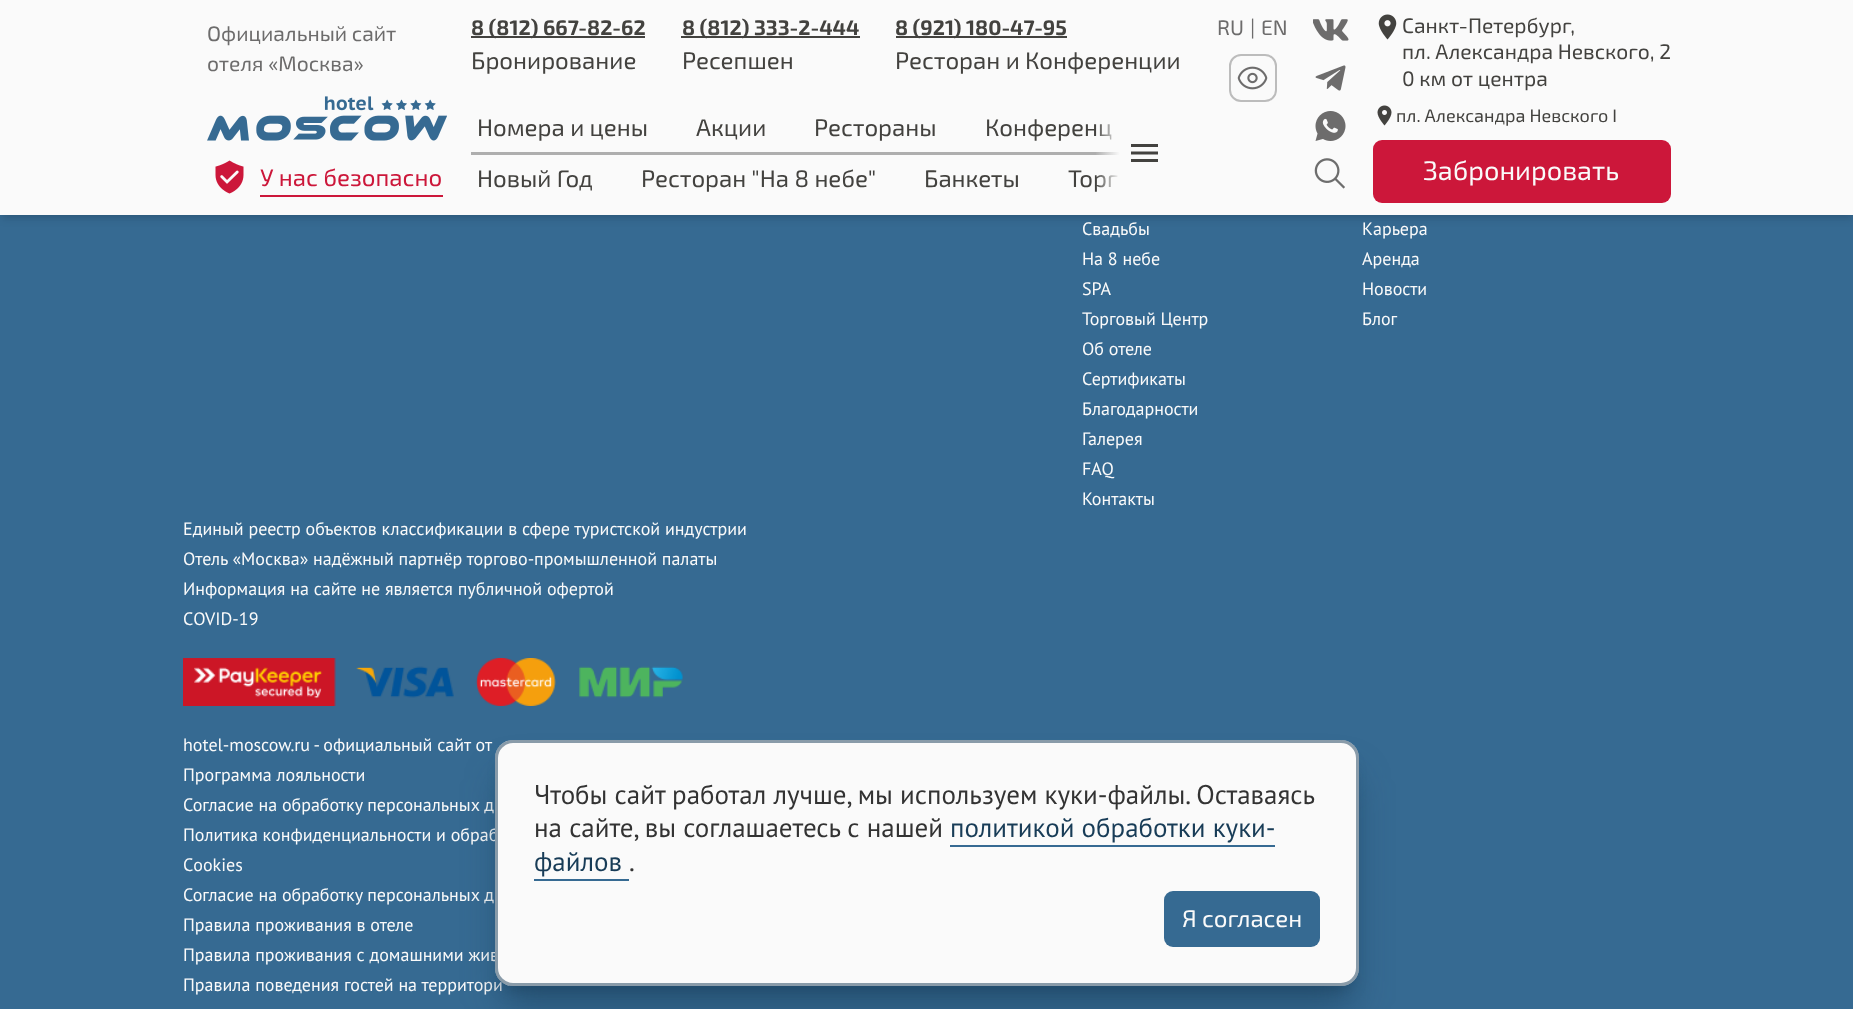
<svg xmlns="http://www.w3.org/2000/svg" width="1853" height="1009">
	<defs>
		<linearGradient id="g1" gradientUnits="userSpaceOnUse" x1="1095" y1="153" x2="1194" y2="153"><stop offset="0" stop-color="#FAFAFA" stop-opacity="0" /><stop offset="0.25" stop-color="#FAFAFA" /><stop offset="1" stop-color="#FAFAFA" /></linearGradient>
	</defs>
	<rect width="100%" height="100%" fill="#366A92" />
	<rect x="3" y="6" width="1848" height="209" fill="#000000" fill-opacity="0.1" filter="blur(3px)" />
	<rect x="2" y="8" width="1851" height="211" fill="#000000" fill-opacity="0.1" filter="blur(4.5px)" />
	<rect x="0" y="0" width="1853" height="215" fill="#FAFAFA" />
	<g font-family="'Exo 2'" font-size="21" fill="#6D6C6C">
		<text x="207" y="41">Официальный сайт</text>
		<text x="207" y="71">отеля «Москва»</text>
	</g>
	<image x="207" y="96" width="240" height="45" href="assets/img1.png" />
	<image x="215" y="160" width="29" height="34" href="assets/img2.png" />
	<rect x="260" y="195" width="183" height="2" fill="#CC173A" />
	<text x="260" y="186" font-family="'Exo 2'" font-size="24" fill="#CC173A">У нас безопасно</text>
	<rect x="471" y="36" width="174" height="2" fill="#43423F" />
	<text x="471" y="35" font-family="'Exo 2'" font-size="21" font-weight="700" fill="#43423F">8 (812) 667-82-62</text>
	<text x="471" y="69" font-family="'Exo 2'" font-size="24" fill="#43423F">Бронирование</text>
	<rect x="681" y="36" width="179" height="2" fill="#43423F" />
	<text x="682" y="35" font-family="'Exo 2'" font-size="21" font-weight="700" fill="#43423F">8 (812) 333-2-444</text>
	<text x="682" y="69" font-family="'Exo 2'" font-size="24" fill="#43423F">Ресепшен</text>
	<rect x="896" y="36" width="171" height="2" fill="#43423F" />
	<text x="895" y="35" font-family="'Exo 2'" font-size="21" font-weight="700" fill="#43423F">8 (921) 180-47-95</text>
	<g font-family="'Exo 2'" font-size="24" fill="#43423F">
		<text x="895" y="69">Ресторан и Конференции</text>
		<text x="477" y="136">Номера и цены</text>
		<text x="696" y="136">Акции</text>
		<text x="814" y="136">Рестораны</text>
		<text x="985" y="136">Конференц</text>
	</g>
	<rect x="471" y="152" width="649" height="3" fill="#AEAEAE" />
	<g font-family="'Exo 2'" font-size="24" fill="#43423F">
		<text x="477" y="187">Новый Год</text>
		<text x="641" y="187">Ресторан "На 8 небе"</text>
		<text x="924" y="187">Банкеты</text>
		<text x="1068" y="187">Торг</text>
	</g>
	<rect x="1096" y="124" width="24" height="68" fill="url(#g1)" />
	<image x="1131" y="144" width="27" height="18" href="assets/img3.png" />
	<g font-family="'Exo 2'" font-size="21" fill="#6D6C6C">
		<text x="1217" y="35">RU</text>
		<text x="1250" y="35">|</text>
		<text x="1261" y="35">EN</text>
	</g>
	<rect x="1230" y="55" width="46" height="46" rx="11" fill="none" stroke="#BCBCBC" stroke-width="2" />
	<image x="1237" y="66" width="31" height="24" href="assets/img4.png" />
	<image x="1313" y="19" width="36" height="22" href="assets/img5.png" />
	<image x="1315" y="65" width="31" height="26" href="assets/img6.png" />
	<image x="1315" y="111" width="31" height="30" href="assets/img7.png" />
	<image x="1314" y="158" width="31" height="31" href="assets/img8.png" />
	<image x="1378" y="14" width="19" height="26" href="assets/img9.png" />
	<g font-family="'Exo 2'" font-size="21" fill="#43423F">
		<text x="1402" y="33">Санкт-Петербург,</text>
		<text x="1402" y="59">пл. Александра Невского, 2</text>
		<text x="1402" y="86">0 км от центра</text>
	</g>
	<image x="1377" y="105" width="15" height="21" href="assets/img10.png" />
	<text x="1396" y="122" font-family="'Exo 2'" font-size="18" fill="#43423F">пл. Александра Невского I</text>
	<rect x="1373" y="140" width="298" height="63" rx="9" fill="#CC173A" />
	<text x="1423" y="180" font-family="'Exo 2'" font-size="27" fill="#FAFAFA">Забронировать</text>
	<g font-family="PT Sans" font-size="18" fill="#FAFAFA">
		<text x="1082" y="235">Свадьбы</text>
		<text x="1082" y="265">На 8 небе</text>
		<text x="1082" y="295">SPA</text>
		<text x="1082" y="325">Торговый Центр</text>
		<text x="1082" y="355">Об отеле</text>
		<text x="1082" y="385">Сертификаты</text>
		<text x="1082" y="415">Благодарности</text>
		<text x="1082" y="445">Галерея</text>
		<text x="1082" y="475">FAQ</text>
		<text x="1082" y="505">Контакты</text>
		<text x="1362" y="235">Карьера</text>
		<text x="1362" y="265">Аренда</text>
		<text x="1362" y="295">Новости</text>
		<text x="1362" y="325">Блог</text>
		<text x="183" y="535">Единый реестр объектов классификации в сфере туристской индустрии</text>
		<text x="183" y="565">Отель «Москва» надёжный партнёр торгово-промышленной палаты</text>
		<text x="183" y="595">Информация на сайте не является публичной офертой</text>
		<text x="183" y="625">СOVID-19</text>
	</g>
	<image x="183" y="658" width="500" height="48" href="assets/img11.png" />
	<g font-family="PT Sans" font-size="18" fill="#FAFAFA">
		<text x="183" y="751">hotel-moscow.ru - официальный сайт от</text>
		<text x="183" y="781">Программа лояльности</text>
		<text x="183" y="811">Согласие на обработку персональных д</text>
		<text x="183" y="841">Политика конфиденциальности и обраб</text>
		<text x="183" y="871">Сookies</text>
		<text x="183" y="901">Согласие на обработку персональных д</text>
		<text x="183" y="931">Правила проживания в отеле</text>
		<text x="183" y="961">Правила проживания с домашними жив</text>
		<text x="183" y="991">Правила поведения гостей на территори</text>
	</g>
	<rect x="504" y="761" width="846" height="228" rx="9" fill="#183C57" fill-opacity="0.5" filter="blur(7.5px)" />
	<rect x="503" y="777" width="849" height="231" rx="11" fill="#183C57" fill-opacity="0.5" filter="blur(19px)" />
	<rect x="495" y="740" width="864" height="246" rx="18" fill="#FAFAFA" />
	<rect x="496.5" y="741.5" width="861" height="243" rx="16.5" fill="none" stroke="#183C57" stroke-opacity="0.5" stroke-width="3" />
	<g font-family="PT Sans" font-size="27" fill="#333333">
		<text x="534" y="804">Чтобы сайт работал лучше, мы используем куки-файлы. Оставаясь</text>
		<text x="534" y="837">на сайте, вы соглашаетесь с нашей</text>
	</g>
	<text x="950" y="837" font-family="PT Sans" font-size="27" fill="#183C57">политикой обработки куки-</text>
	<rect x="950" y="845" width="325" height="2" fill="#366A92" />
	<text x="534" y="871" font-family="PT Sans" font-size="27" fill="#183C57">файлов</text>
	<rect x="534" y="879" width="95" height="2" fill="#366A92" />
	<text x="629" y="871" font-family="PT Sans" font-size="27" fill="#333333">.</text>
	<rect x="1164" y="891" width="156" height="56" rx="9" fill="#366A92" />
	<text x="1182" y="927" font-family="'Exo 2'" font-size="24" fill="#FAFAFA">Я согласен</text>
</svg>
